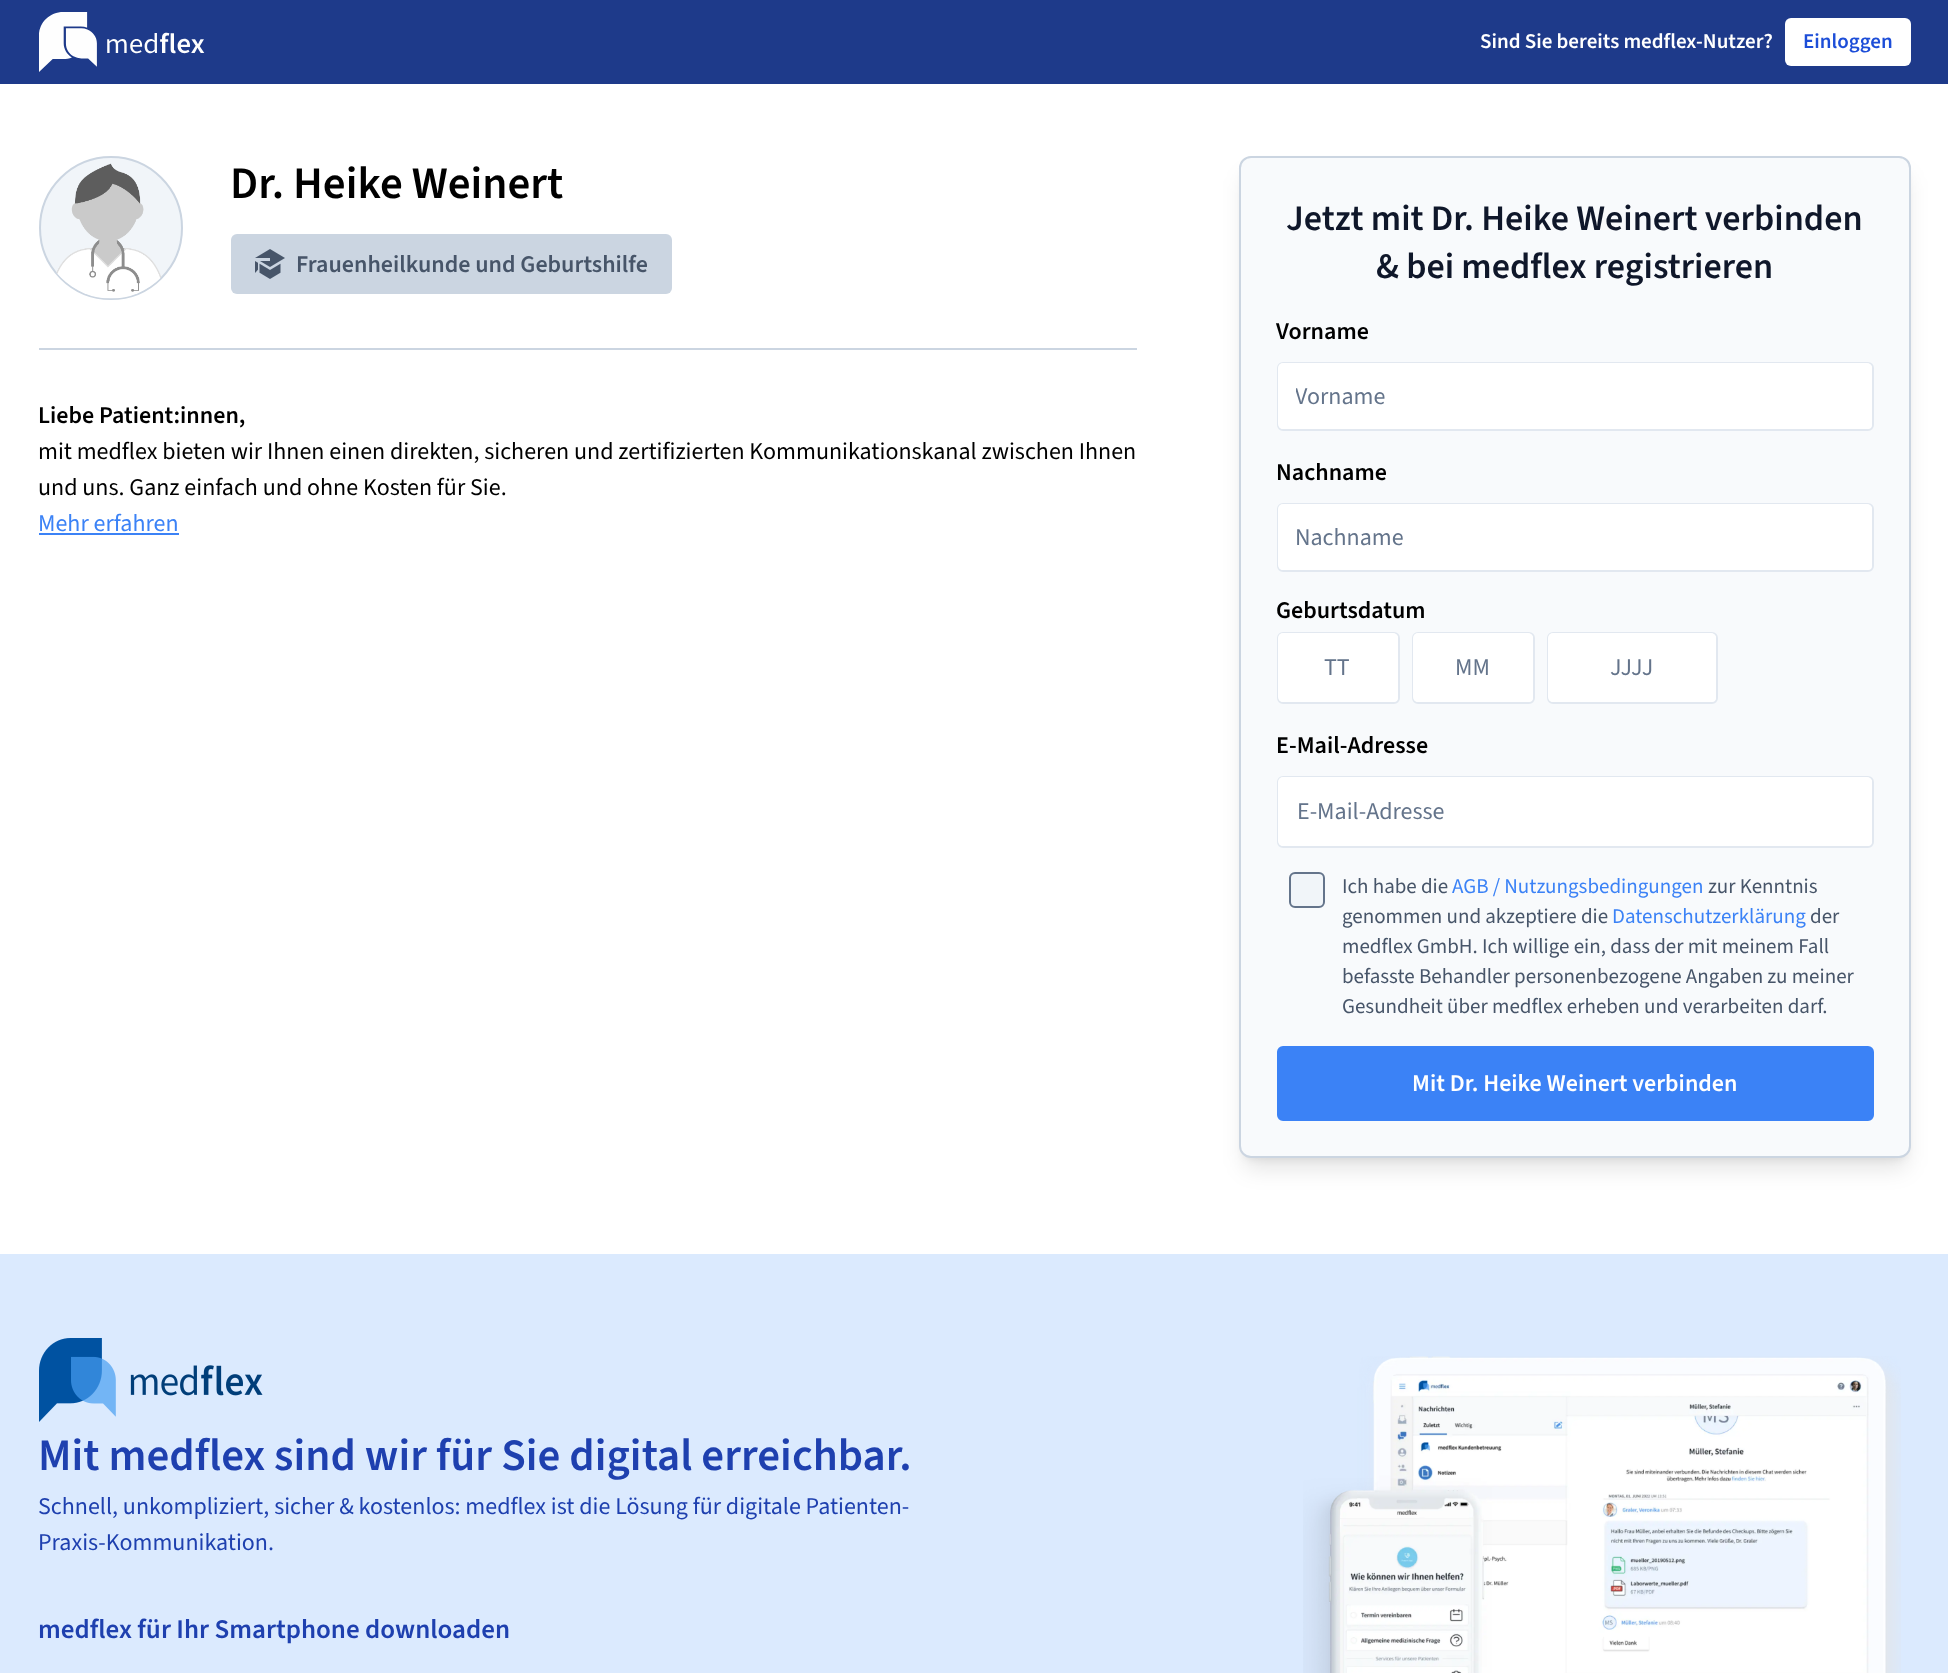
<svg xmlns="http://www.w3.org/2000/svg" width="1948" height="1673">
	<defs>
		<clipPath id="clip1"><rect x="1296" y="380" width="558" height="31" /></clipPath>
	</defs>
	<rect width="100%" height="100%" fill="#FFFFFF" />
	<rect x="0" y="0" width="1948" height="84" fill="#1E3A8A" />
	<image x="39" y="12" width="166" height="60" href="assets/img1.png" />
	<text x="1480" y="48" font-family="'Source Sans 3'" font-size="21" font-weight="600" fill="#FFFFFF">Sind Sie bereits medflex-Nutzer?</text>
	<rect x="1785" y="18" width="126" height="48" rx="6" fill="#FFFFFF" />
	<text x="1803" y="48" font-family="'Source Sans 3'" font-size="21" font-weight="600" fill="#1D4ED8">Einloggen</text>
	<rect x="39" y="348" width="1098" height="2" fill="#CBD5E1" />
	<circle cx="111" cy="228" r="71" fill="#F1F5F9" stroke="#CBD5E1" stroke-width="2" />
	<image x="56" y="163" width="105" height="136" href="assets/img2.png" />
	<text x="230" y="198" font-family="'Source Sans 3'" font-size="45" font-weight="600" fill="#000000">Dr. Heike Weinert</text>
	<rect x="231" y="234" width="441" height="60" rx="6" fill="#CBD5E1" />
	<image x="255" y="249" width="30" height="30" href="assets/img3.png" />
	<text x="296" y="272" font-family="'Source Sans 3'" font-size="24" font-weight="600" fill="#475569">Frauenheilkunde und Geburtshilfe</text>
	<text x="38" y="423" font-family="'Source Sans 3'" font-size="24" font-weight="600" fill="#000000">Liebe Patient:innen,</text>
	<g font-family="'Source Sans 3'" font-size="24" fill="#000000">
		<text x="38" y="459">mit medflex bieten wir Ihnen einen direkten, sicheren und zertifizierten Kommunikationskanal zwischen Ihnen</text>
		<text x="38" y="495">und uns. Ganz einfach und ohne Kosten für Sie.</text>
	</g>
	<text x="38" y="531" font-family="'Source Sans 3'" font-size="24" fill="#3B82F6">Mehr erfahren</text>
	<rect x="39" y="533" width="140" height="2" fill="#3B82F6" />
	<rect x="1245" y="168" width="660" height="990" rx="6" fill="#000000" fill-opacity="0.1" filter="blur(4.5px)" />
	<rect x="1244" y="176" width="663" height="993" rx="8" fill="#000000" fill-opacity="0.1" filter="blur(11px)" />
	<rect x="1240" y="157" width="670" height="1000" rx="11" fill="#F8FAFC" stroke="#CBD5E1" stroke-width="2" />
	<g font-family="'Source Sans 3'" font-size="36" font-weight="600" fill="#0F172A">
		<text x="1286" y="230">Jetzt mit Dr. Heike Weinert verbinden</text>
		<text x="1376" y="278">&amp; bei medflex registrieren</text>
	</g>
	<text x="1276" y="339" font-family="'Source Sans 3'" font-size="24" font-weight="600" fill="#000000">Vorname</text>
	<rect x="1278" y="363" width="595" height="67" rx="5" fill="#FFFFFF" stroke="#E2E8F0" stroke-width="2" />
	<rect x="1278" y="363" width="594" height="66" rx="5" fill="#FFFFFF" />
	<g clip-path="url(#clip1)">
		<text x="1295" y="404" font-family="'Source Sans 3'" font-size="24" fill="#64748B">Vorname</text>
	</g>
	<text x="1276" y="480" font-family="'Source Sans 3'" font-size="24" font-weight="600" fill="#000000">Nachname</text>
	<rect x="1278" y="504" width="595" height="67" rx="5" fill="#FFFFFF" stroke="#E2E8F0" stroke-width="2" />
	<rect x="1278" y="504" width="594" height="66" rx="5" fill="#FFFFFF" />
	<text x="1295" y="545" font-family="'Source Sans 3'" font-size="24" fill="#64748B">Nachname</text>
	<text x="1276" y="618" font-family="'Source Sans 3'" font-size="24" font-weight="600" fill="#000000">Geburtsdatum</text>
	<rect x="1278" y="633" width="121" height="70" rx="5" fill="#FFFFFF" stroke="#E2E8F0" stroke-width="2" />
	<rect x="1278" y="633" width="120" height="69" rx="5" fill="#FFFFFF" />
	<text x="1324" y="675" font-family="'Source Sans 3'" font-size="24" fill="#64748B">TT</text>
	<rect x="1413" y="633" width="121" height="70" rx="5" fill="#FFFFFF" stroke="#E2E8F0" stroke-width="2" />
	<rect x="1413" y="633" width="120" height="69" rx="5" fill="#FFFFFF" />
	<text x="1455" y="675" font-family="'Source Sans 3'" font-size="24" fill="#64748B">MM</text>
	<rect x="1548" y="633" width="169" height="70" rx="5" fill="#FFFFFF" stroke="#E2E8F0" stroke-width="2" />
	<rect x="1548" y="633" width="168" height="69" rx="5" fill="#FFFFFF" />
	<text x="1610" y="675" font-family="'Source Sans 3'" font-size="24" fill="#64748B">JJJJ</text>
	<text x="1276" y="753" font-family="'Source Sans 3'" font-size="24" font-weight="600" fill="#000000">E-Mail-Adresse</text>
	<rect x="1278" y="777" width="595" height="70" rx="5" fill="#FFFFFF" stroke="#E2E8F0" stroke-width="2" />
	<rect x="1278" y="777" width="594" height="69" rx="5" fill="#FFFFFF" />
	<text x="1297" y="819" font-family="'Source Sans 3'" font-size="24" fill="#64748B">E-Mail-Adresse</text>
	<rect x="1290" y="873" width="34" height="34" rx="5" fill="#F1F5F9" stroke="#64748B" stroke-width="2" />
	<text x="1342" y="893" font-family="'Source Sans 3'" font-size="21" fill="#475569">Ich habe die</text>
	<text x="1452" y="893" font-family="'Source Sans 3'" font-size="21" fill="#3B82F6">AGB / Nutzungsbedingungen</text>
	<g font-family="'Source Sans 3'" font-size="21" fill="#475569">
		<text x="1708" y="893">zur Kenntnis</text>
		<text x="1342" y="923">genommen und akzeptiere die</text>
	</g>
	<text x="1612" y="923" font-family="'Source Sans 3'" font-size="21" fill="#3B82F6">Datenschutzerklärung</text>
	<g font-family="'Source Sans 3'" font-size="21" fill="#475569">
		<text x="1810" y="923">der</text>
		<text x="1342" y="953">medflex GmbH. Ich willige ein, dass der mit meinem Fall</text>
		<text x="1342" y="983">befasste Behandler personenbezogene Angaben zu meiner</text>
		<text x="1342" y="1013">Gesundheit über medflex erheben und verarbeiten darf.</text>
	</g>
	<rect x="1278" y="1047" width="595" height="73" rx="5" fill="#3B82F6" stroke="#3B82F6" stroke-width="2" />
	<text x="1412" y="1091" font-family="'Source Sans 3'" font-size="24" font-weight="600" fill="#FFFFFF">Mit Dr. Heike Weinert verbinden</text>
	<rect x="0" y="1254" width="1948" height="419" fill="#DBEAFE" />
	<image x="39" y="1338" width="224" height="84" href="assets/img4.png" />
	<text x="38" y="1470" font-family="'Source Sans 3'" font-size="45" font-weight="600" fill="#1E40AF">Mit medflex sind wir für Sie digital erreichbar.</text>
	<g font-family="'Source Sans 3'" font-size="24" fill="#1E40AF">
		<text x="38" y="1514">Schnell, unkompliziert, sicher &amp; kostenlos: medflex ist die Lösung für digitale Patienten-</text>
		<text x="38" y="1550">Praxis-Kommunikation.</text>
	</g>
	<text x="38" y="1638" font-family="'Source Sans 3'" font-size="27" font-weight="600" fill="#1E40AF">medflex für Ihr Smartphone downloaden</text>
	<image x="1303" y="1356" width="598" height="317" href="assets/img5.png" />
</svg>
